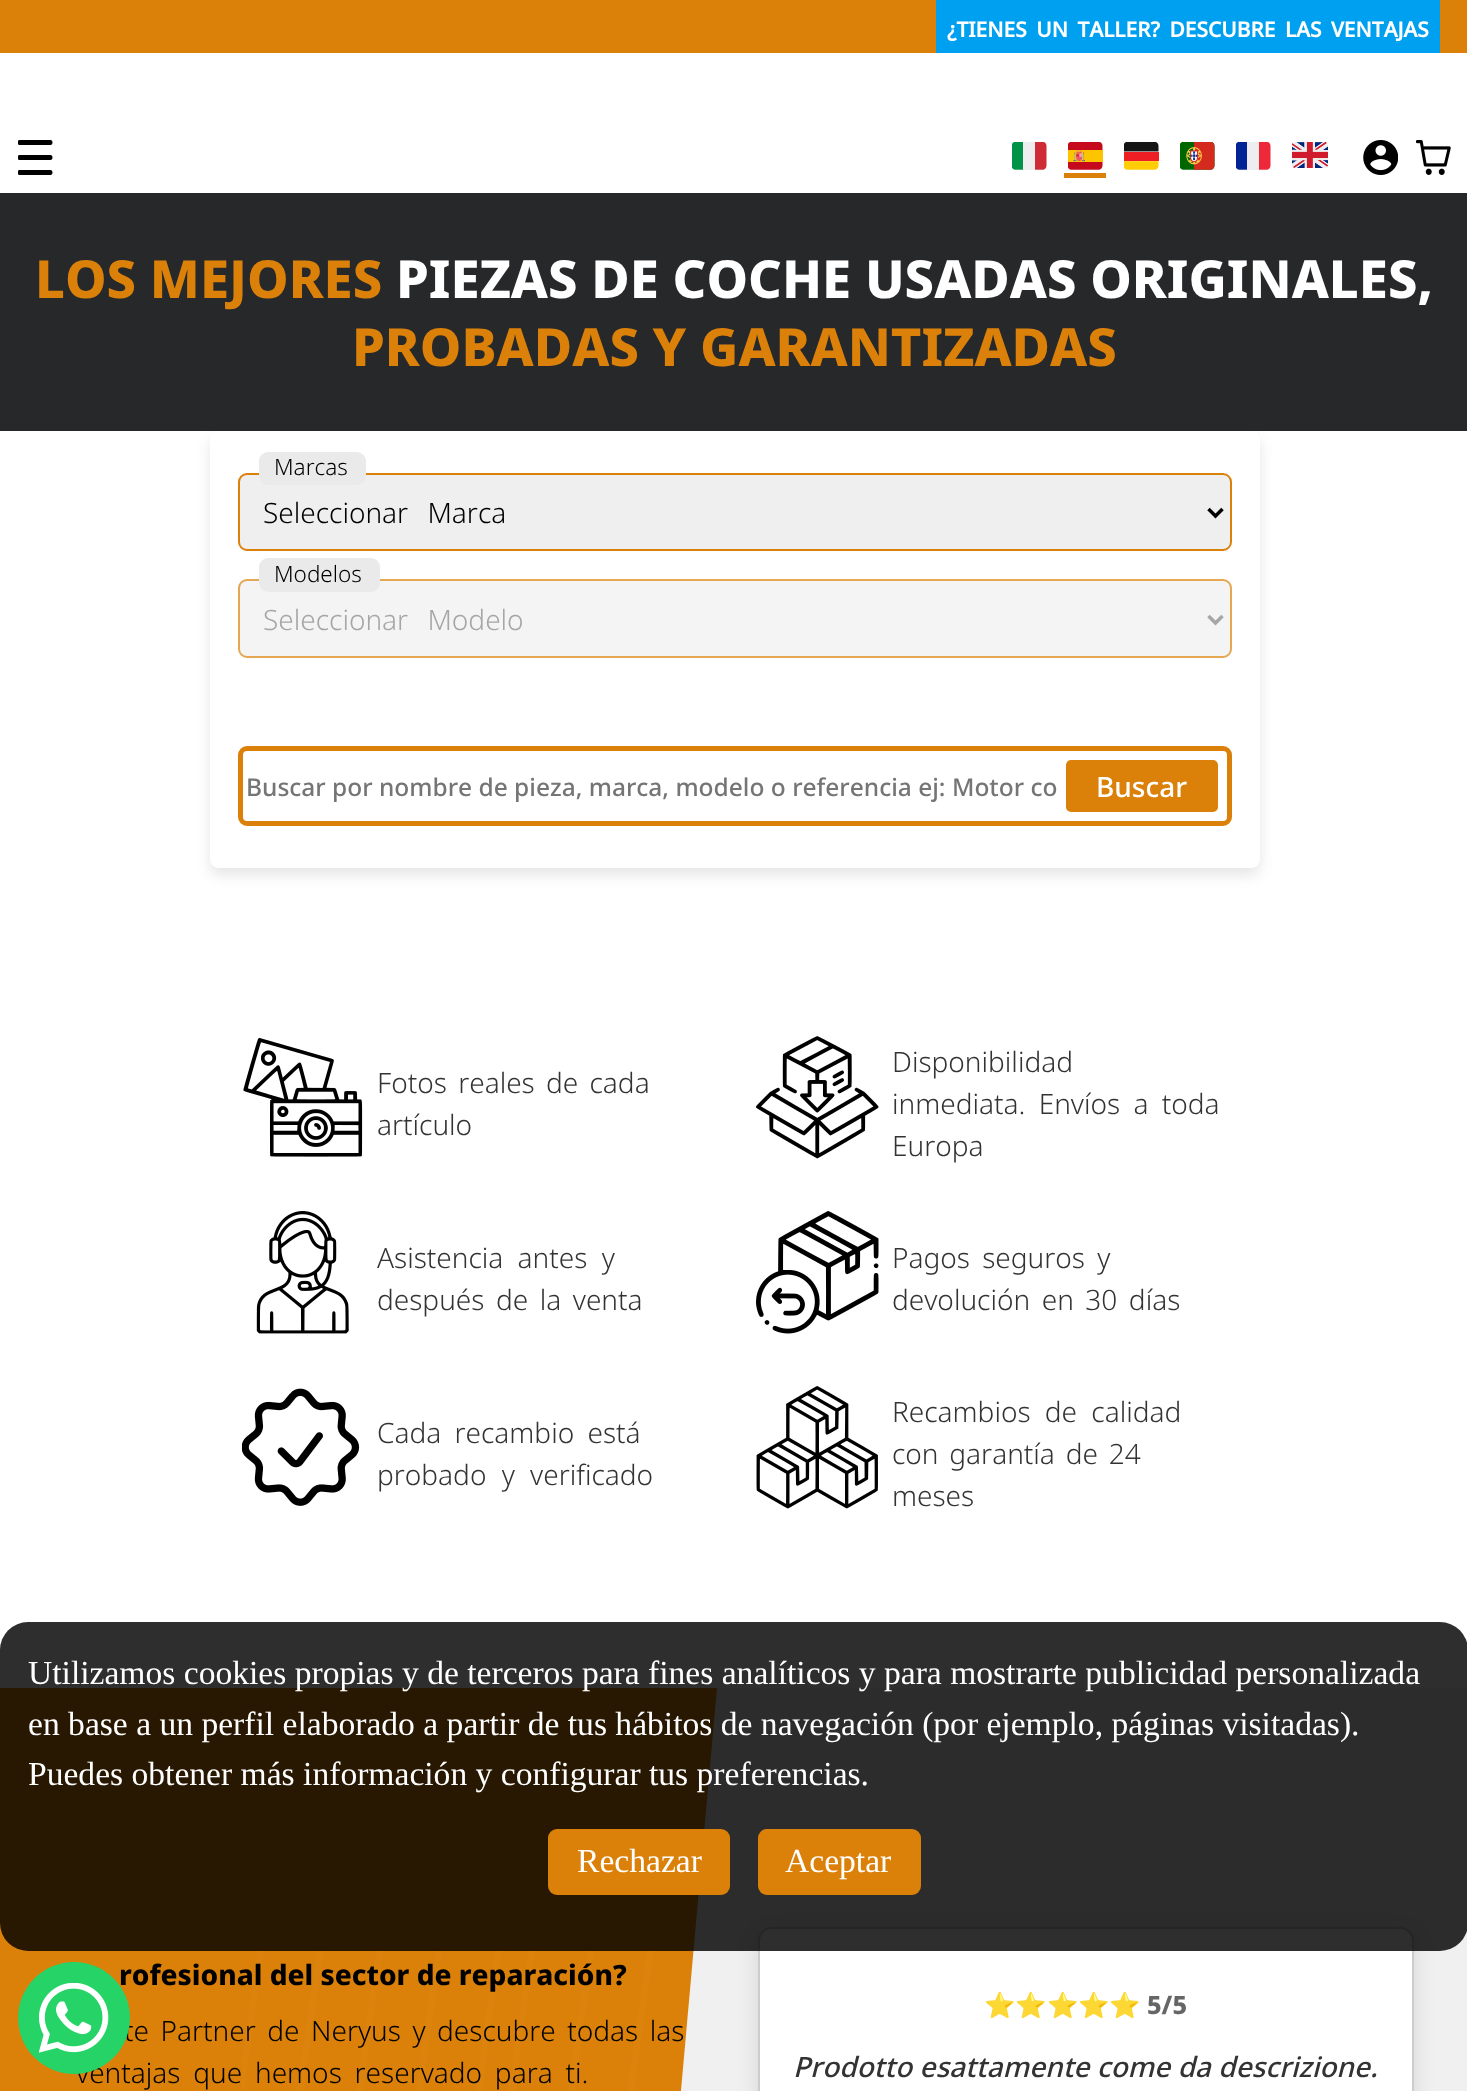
<svg xmlns="http://www.w3.org/2000/svg" width="1467" height="2091">
	<style>*{font-kerning:none!important;font-variant-ligatures:none!important}</style>
	<defs>
		<clipPath id="clip1"><path d="M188 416H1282V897H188ZM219 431H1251C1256 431 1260 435 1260 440V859C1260 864 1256 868 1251 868H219C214 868 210 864 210 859V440C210 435 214 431 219 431Z" clip-rule="evenodd" /></clipPath>
		<linearGradient id="g1" gradientUnits="userSpaceOnUse" x1="845" y1="2047" x2="197" y2="1956"><stop offset="0" stop-color="#000000" stop-opacity="0" /><stop offset="0.04" stop-color="#FFFFFF" stop-opacity="0" /><stop offset="0.04" stop-color="#FFFFFF" stop-opacity="0.05" /><stop offset="0.05" stop-color="#FFFFFF" stop-opacity="0.05" /><stop offset="0.05" stop-color="#FFFFFF" stop-opacity="0" /><stop offset="0.09" stop-color="#FFFFFF" stop-opacity="0" /><stop offset="0.09" stop-color="#FFFFFF" stop-opacity="0.05" /><stop offset="0.09" stop-color="#FFFFFF" stop-opacity="0.05" /><stop offset="0.09" stop-color="#FFFFFF" stop-opacity="0" /><stop offset="0.13" stop-color="#FFFFFF" stop-opacity="0" /><stop offset="0.13" stop-color="#FFFFFF" stop-opacity="0.05" /><stop offset="0.14" stop-color="#FFFFFF" stop-opacity="0.05" /><stop offset="0.14" stop-color="#FFFFFF" stop-opacity="0" /><stop offset="0.18" stop-color="#FFFFFF" stop-opacity="0" /><stop offset="0.18" stop-color="#FFFFFF" stop-opacity="0.05" /><stop offset="0.18" stop-color="#FFFFFF" stop-opacity="0.05" /><stop offset="0.18" stop-color="#FFFFFF" stop-opacity="0" /><stop offset="0.22" stop-color="#FFFFFF" stop-opacity="0" /><stop offset="0.22" stop-color="#FFFFFF" stop-opacity="0.05" /><stop offset="0.23" stop-color="#FFFFFF" stop-opacity="0.05" /><stop offset="0.23" stop-color="#FFFFFF" stop-opacity="0" /><stop offset="0.27" stop-color="#FFFFFF" stop-opacity="0" /><stop offset="0.27" stop-color="#FFFFFF" stop-opacity="0.05" /><stop offset="0.27" stop-color="#FFFFFF" stop-opacity="0.05" /><stop offset="0.27" stop-color="#FFFFFF" stop-opacity="0" /><stop offset="0.31" stop-color="#FFFFFF" stop-opacity="0" /><stop offset="0.31" stop-color="#FFFFFF" stop-opacity="0.05" /><stop offset="0.32" stop-color="#FFFFFF" stop-opacity="0.05" /><stop offset="0.32" stop-color="#FFFFFF" stop-opacity="0" /><stop offset="0.36" stop-color="#FFFFFF" stop-opacity="0" /><stop offset="0.36" stop-color="#FFFFFF" stop-opacity="0.05" /><stop offset="0.36" stop-color="#FFFFFF" stop-opacity="0.05" /><stop offset="0.36" stop-color="#FFFFFF" stop-opacity="0" /><stop offset="0.4" stop-color="#FFFFFF" stop-opacity="0" /><stop offset="0.4" stop-color="#FFFFFF" stop-opacity="0.05" /><stop offset="0.41" stop-color="#FFFFFF" stop-opacity="0.05" /><stop offset="0.41" stop-color="#FFFFFF" stop-opacity="0" /><stop offset="0.45" stop-color="#FFFFFF" stop-opacity="0" /><stop offset="0.45" stop-color="#FFFFFF" stop-opacity="0.05" /><stop offset="0.45" stop-color="#FFFFFF" stop-opacity="0.05" /><stop offset="0.45" stop-color="#FFFFFF" stop-opacity="0" /><stop offset="0.49" stop-color="#FFFFFF" stop-opacity="0" /><stop offset="0.49" stop-color="#FFFFFF" stop-opacity="0.05" /><stop offset="0.5" stop-color="#FFFFFF" stop-opacity="0.05" /><stop offset="0.5" stop-color="#FFFFFF" stop-opacity="0" /><stop offset="0.54" stop-color="#FFFFFF" stop-opacity="0" /><stop offset="0.54" stop-color="#FFFFFF" stop-opacity="0.05" /><stop offset="0.55" stop-color="#FFFFFF" stop-opacity="0.05" /><stop offset="0.55" stop-color="#FFFFFF" stop-opacity="0" /><stop offset="0.59" stop-color="#FFFFFF" stop-opacity="0" /><stop offset="0.59" stop-color="#FFFFFF" stop-opacity="0.05" /><stop offset="0.59" stop-color="#FFFFFF" stop-opacity="0.05" /><stop offset="0.59" stop-color="#FFFFFF" stop-opacity="0" /><stop offset="0.63" stop-color="#FFFFFF" stop-opacity="0" /><stop offset="0.63" stop-color="#FFFFFF" stop-opacity="0.05" /><stop offset="0.64" stop-color="#FFFFFF" stop-opacity="0.05" /><stop offset="0.64" stop-color="#FFFFFF" stop-opacity="0" /><stop offset="0.68" stop-color="#FFFFFF" stop-opacity="0" /><stop offset="0.68" stop-color="#FFFFFF" stop-opacity="0.05" /><stop offset="0.68" stop-color="#FFFFFF" stop-opacity="0.05" /><stop offset="0.68" stop-color="#FFFFFF" stop-opacity="0" /><stop offset="0.72" stop-color="#FFFFFF" stop-opacity="0" /><stop offset="0.72" stop-color="#FFFFFF" stop-opacity="0.05" /><stop offset="0.73" stop-color="#FFFFFF" stop-opacity="0.05" /><stop offset="0.73" stop-color="#FFFFFF" stop-opacity="0" /><stop offset="0.77" stop-color="#FFFFFF" stop-opacity="0" /><stop offset="0.77" stop-color="#FFFFFF" stop-opacity="0.05" /><stop offset="0.77" stop-color="#FFFFFF" stop-opacity="0.05" /><stop offset="0.77" stop-color="#FFFFFF" stop-opacity="0" /><stop offset="0.81" stop-color="#FFFFFF" stop-opacity="0" /><stop offset="0.81" stop-color="#FFFFFF" stop-opacity="0.05" /><stop offset="0.82" stop-color="#FFFFFF" stop-opacity="0.05" /><stop offset="0.82" stop-color="#FFFFFF" stop-opacity="0" /><stop offset="0.86" stop-color="#FFFFFF" stop-opacity="0" /><stop offset="0.86" stop-color="#FFFFFF" stop-opacity="0.05" /><stop offset="0.86" stop-color="#FFFFFF" stop-opacity="0.05" /><stop offset="0.86" stop-color="#FFFFFF" stop-opacity="0" /><stop offset="0.9" stop-color="#FFFFFF" stop-opacity="0" /><stop offset="0.9" stop-color="#FFFFFF" stop-opacity="0.05" /><stop offset="0.91" stop-color="#FFFFFF" stop-opacity="0.05" /><stop offset="0.91" stop-color="#FFFFFF" stop-opacity="0" /><stop offset="0.95" stop-color="#FFFFFF" stop-opacity="0" /><stop offset="0.95" stop-color="#FFFFFF" stop-opacity="0.05" /><stop offset="0.95" stop-color="#FFFFFF" stop-opacity="0.05" /><stop offset="0.95" stop-color="#FFFFFF" stop-opacity="0" /><stop offset="0.99" stop-color="#FFFFFF" stop-opacity="0" /><stop offset="0.99" stop-color="#FFFFFF" stop-opacity="0.05" /><stop offset="1" stop-color="#FFFFFF" stop-opacity="0.05" /></linearGradient>
	</defs>
	<rect width="100%" height="100%" fill="#FFFFFF" />
	<rect x="0" y="0" width="1467" height="53" fill="#DB8109" />
	<rect x="936" y="0" width="504" height="53" fill="#00A0F0" />
	<text x="947" y="37" word-spacing="4" font-family="Noto Sans" font-size="21" font-weight="700" fill="#FFFFFF">¿TIENES UN TALLER? DESCUBRE LAS VENTAJAS</text>
	<image x="18" y="140" width="35" height="35" href="assets/img1.png" />
	<image x="1012" y="142" width="35" height="28" href="assets/img2.png" />
	<rect x="1064" y="173" width="42" height="5" fill="#DB8109" />
	<image x="1068" y="142" width="35" height="28" href="assets/img3.png" />
	<image x="1124" y="142" width="35" height="28" href="assets/img4.png" />
	<image x="1180" y="142" width="35" height="28" href="assets/img5.png" />
	<image x="1236" y="142" width="35" height="28" href="assets/img6.png" />
	<image x="1292" y="142" width="36" height="26" href="assets/img7.png" />
	<image x="1363" y="140" width="35" height="35" href="assets/img8.png" />
	<image x="1416" y="140" width="35" height="35" href="assets/img9.png" />
	<g clip-path="url(#clip1)">
		<rect x="210" y="438" width="1050" height="437" rx="9" fill="#000000" fill-opacity="0.1" filter="blur(7px)" />
	</g>
	<rect x="0" y="193" width="1467" height="238" fill="#27282A" />
	<text x="35" y="298" font-family="Noto Sans" font-size="52.5" font-weight="800" fill="#DB8109">LOS MEJORES</text>
	<text x="396" y="298" font-family="Noto Sans" font-size="52.5" font-weight="800" fill="#FFFFFF">PIEZAS DE COCHE USADAS ORIGINALES,</text>
	<text x="352" y="366" font-family="Noto Sans" font-size="52.5" font-weight="800" fill="#DB8109">PROBADAS Y GARANTIZADAS</text>
	<rect x="239" y="474" width="992" height="76" rx="8" fill="#EFEFEF" stroke="#DB8109" stroke-width="2" />
	<rect x="259" y="452" width="107" height="33" rx="9" fill="#EAEAEA" />
	<text x="274" y="475" font-family="Noto Sans" font-size="22.5" font-weight="300" fill="#000000">Marcas</text>
	<path d="M1208.5 509L1215.5 516L1222.5 509" fill="none" stroke="#000000" stroke-width="3.5" />
	<text x="263" y="523" word-spacing="12" font-family="Noto Sans" font-size="28" font-weight="300" fill="#000000">Seleccionar Marca</text>
	<rect x="239" y="580" width="992" height="77" rx="8" fill="#F4F4F4" stroke="#E6A753" stroke-width="2" />
	<rect x="259" y="558" width="121" height="34" rx="9" fill="#EAEAEA" />
	<text x="274" y="582" font-family="Noto Sans" font-size="22.5" font-weight="300" fill="#000000">Modelos</text>
	<path d="M1208.5 616L1215.5 623L1222.5 616" fill="none" stroke="#A6A6A6" stroke-width="3.5" />
	<text x="263" y="630" word-spacing="12" font-family="Noto Sans" font-size="28" font-weight="300" fill="#A6A6A6">Seleccionar Modelo</text>
	<rect x="240.5" y="748.5" width="989" height="75" rx="6.5" fill="none" stroke="#DB8109" stroke-width="5" />
	<text x="246" y="796" font-family="Noto Sans" font-size="24.5" font-weight="500" fill="#757575">Buscar por nombre de pieza, marca, modelo o referencia ej: Motor co</text>
	<rect x="1067" y="761" width="150" height="50" rx="4" fill="#DB8109" stroke="#DB8109" stroke-width="2" />
	<text x="1096" y="797" font-family="Noto Sans" font-size="28" font-weight="500" fill="#FFFFFF">Buscar</text>
	<image x="243" y="1038" width="120" height="119" href="assets/img10.png" />
	<g font-family="Noto Sans" font-size="28" font-weight="300" fill="#333333">
		<text x="377" y="1093" word-spacing="4">Fotos reales de cada</text>
		<text x="377" y="1135">artículo</text>
	</g>
	<image x="756" y="1036" width="123" height="123" href="assets/img11.png" />
	<g font-family="Noto Sans" font-size="28" font-weight="300" fill="#333333">
		<text x="892" y="1072">Disponibilidad</text>
		<text x="892" y="1114" word-spacing="6">inmediata. Envíos a toda</text>
		<text x="892" y="1156">Europa</text>
	</g>
	<image x="256" y="1211" width="93" height="123" href="assets/img12.png" />
	<g font-family="Noto Sans" font-size="28" font-weight="300" fill="#333333">
		<text x="377" y="1268" word-spacing="7">Asistencia antes y</text>
		<text x="377" y="1310" word-spacing="4.25">después de la venta</text>
	</g>
	<image x="756" y="1211" width="123" height="123" href="assets/img13.png" />
	<g font-family="Noto Sans" font-size="28" font-weight="300" fill="#333333">
		<text x="892" y="1268" word-spacing="5">Pagos seguros y</text>
		<text x="892" y="1310" word-spacing="4.25">devolución en 30 días</text>
	</g>
	<image x="242" y="1388" width="118" height="118" href="assets/img14.png" />
	<g font-family="Noto Sans" font-size="28" font-weight="300" fill="#333333">
		<text x="377" y="1443" word-spacing="6">Cada recambio está</text>
		<text x="377" y="1485" word-spacing="8">probado y verificado</text>
	</g>
	<image x="756" y="1386" width="122" height="123" href="assets/img15.png" />
	<g font-family="Noto Sans" font-size="28" font-weight="300" fill="#333333">
		<text x="892" y="1422" word-spacing="7">Recambios de calidad</text>
		<text x="892" y="1464" word-spacing="3.5">con garantía de 24</text>
		<text x="892" y="1506">meses</text>
	</g>
	<path d="M0 1688V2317H751L807 1693V1688Z" fill="#DB8109" />
	<path d="M751 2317H242V1688H807V1693Z" fill="url(#g1)" />
	<path d="M0 1688V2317H751L807 1693V1688Z" fill="#DB8109" fill-opacity="0.65" />
	<text x="119" y="1985" font-family="Noto Sans" font-size="28" font-weight="800" fill="#000000">rofesional del sector de reparación?</text>
	<g font-family="Noto Sans" font-size="28" font-weight="300" fill="#000000">
		<text x="124" y="2041" word-spacing="4.25">te Partner de Neryus y descubre todas las</text>
		<text x="76" y="2083" word-spacing="5.5">ventajas que hemos reservado para ti.</text>
	</g>
	<path d="M717 1688H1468V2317H662V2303Z" fill="#F0F0F0" />
	<rect x="758" y="1934" width="656" height="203" rx="14" fill="#000000" fill-opacity="0.1" filter="blur(10.5px)" />
	<rect x="759" y="1928" width="654" height="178" rx="13" fill="#FFFFFF" stroke="#CCCCCC" stroke-width="2" />
	<text x="984" y="2014" font-family="Noto Color Emoji" font-size="25.25" font-weight="700" fill="#666666">⭐⭐⭐⭐⭐</text>
	<text x="1147" y="2014" font-family="Noto Sans" font-size="25.25" font-weight="800" fill="#666666">5/5</text>
	<text x="793" y="2077" font-family="Noto Sans" font-size="28" font-weight="500" font-style="italic" fill="#333333">Prodotto esattamente come da descrizione.</text>
	<rect x="0" y="1622" width="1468" height="329" rx="28" fill="#000000" fill-opacity="0.82" />
	<g font-family="Liberation Serif" font-size="33.6" fill="#FFFFFF">
		<text x="28" y="1684">Utilizamos cookies propias y de terceros para fines analíticos y para mostrarte publicidad personalizada</text>
		<text x="28" y="1735">en base a un perfil elaborado a partir de tus hábitos de navegación (por ejemplo, páginas visitadas).</text>
		<text x="28" y="1785">Puedes obtener más información y configurar tus preferencias.</text>
	</g>
	<rect x="548" y="1829" width="182" height="66" rx="9" fill="#DB8109" />
	<text x="577" y="1872" font-family="Liberation Serif" font-size="33.6" fill="#FFFFFF">Rechazar</text>
	<rect x="758" y="1829" width="163" height="66" rx="9" fill="#DB8109" />
	<text x="785" y="1872" font-family="Liberation Serif" font-size="33.6" fill="#FFFFFF">Aceptar</text>
	<circle cx="74" cy="2018" r="56" fill="#25D366" />
	<image x="39" y="1983" width="70" height="70" href="assets/img16.png" />
</svg>
